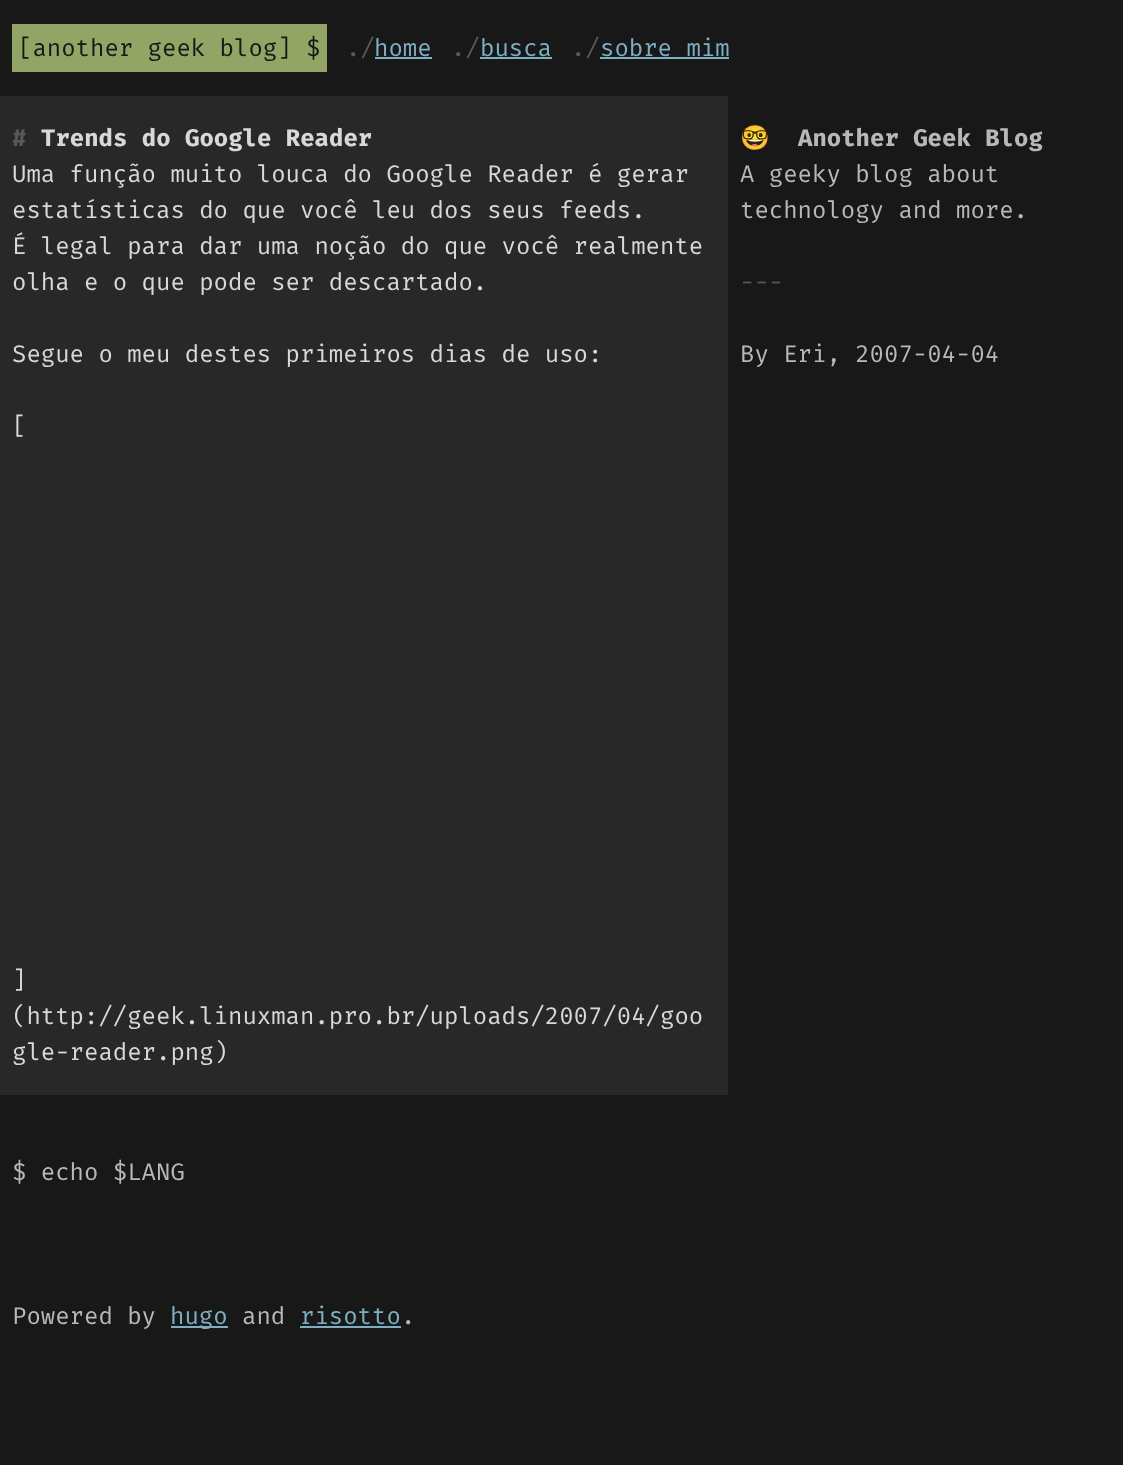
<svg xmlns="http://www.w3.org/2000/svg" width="1123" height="1465">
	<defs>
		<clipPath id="clip1"><rect x="740" y="120" width="360" height="951" /></clipPath>
	</defs>
	<rect width="100%" height="100%" fill="#181818" />
	<rect x="12" y="24" width="315" height="48" fill="#93A564" />
	<text x="18" y="56" font-family="Fira Mono" font-size="24" fill="#181818">[another geek blog] $</text>
	<text x="346" y="56" font-family="Fira Mono" font-size="24" fill="#585858">./</text>
	<text x="374" y="56" font-family="Fira Mono" font-size="24" fill="#7CAFC2">home</text>
	<rect x="375" y="57" width="57" height="2" fill="#7CAFC2" />
	<text x="451" y="56" font-family="Fira Mono" font-size="24" fill="#585858">./</text>
	<text x="480" y="56" font-family="Fira Mono" font-size="24" fill="#7CAFC2">busca</text>
	<rect x="480" y="57" width="72" height="2" fill="#7CAFC2" />
	<text x="571" y="56" font-family="Fira Mono" font-size="24" fill="#585858">./</text>
	<text x="600" y="56" font-family="Fira Mono" font-size="24" fill="#7CAFC2">sobre mim</text>
	<rect x="600" y="57" width="129" height="2" fill="#7CAFC2" />
	<rect x="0" y="108" width="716" height="975" fill="none" stroke="#282828" stroke-width="24" />
	<rect x="12" y="120" width="692" height="951" fill="#282828" />
	<text x="12" y="146" font-family="Fira Mono" font-size="24" font-weight="700" fill="#585858">#</text>
	<text x="41" y="146" font-family="Fira Mono" font-size="24" font-weight="700" fill="#D8D8D8">Trends do Google Reader</text>
	<g font-family="Fira Mono" font-size="24" fill="#D8D8D8">
		<text x="12" y="182">Uma função muito louca do Google Reader é gerar</text>
		<text x="12" y="218">estatísticas do que você leu dos seus feeds.</text>
		<text x="12" y="254">É legal para dar uma noção do que você realmente</text>
		<text x="12" y="290">olha e o que pode ser descartado.</text>
		<text x="12" y="362">Segue o meu destes primeiros dias de uso:</text>
		<text x="12" y="434">[</text>
		<text x="12" y="988">]</text>
		<text x="12" y="1024">(http://geek.linuxman.pro.br/uploads/2007/04/goo</text>
		<text x="12" y="1060">gle-reader.png)</text>
	</g>
	<g clip-path="url(#clip1)">
		<text x="740" y="146" font-family="Noto Color Emoji" font-size="24" fill="#B8B8B8">🤓</text>
	</g>
	<text x="798" y="146" font-family="Fira Mono" font-size="24" font-weight="700" fill="#B8B8B8">Another Geek Blog</text>
	<g font-family="Fira Mono" font-size="24" fill="#B8B8B8">
		<text x="740" y="182">A geeky blog about</text>
		<text x="740" y="218">technology and more.</text>
	</g>
	<text x="740" y="290" font-family="Fira Mono" font-size="24" fill="#585858">---</text>
	<g font-family="Fira Mono" font-size="24" fill="#B8B8B8">
		<text x="740" y="362">By Eri, 2007-04-04</text>
		<text x="12" y="1180">$ echo $LANG</text>
		<text x="12" y="1324">Powered by</text>
	</g>
	<rect x="171" y="1326" width="57" height="2" fill="#7CAFC2" />
	<text x="170" y="1324" font-family="Fira Mono" font-size="24" fill="#7CAFC2">hugo</text>
	<text x="242" y="1324" font-family="Fira Mono" font-size="24" fill="#B8B8B8">and</text>
	<text x="300" y="1324" font-family="Fira Mono" font-size="24" fill="#7CAFC2">risotto</text>
	<rect x="300" y="1326" width="101" height="2" fill="#7CAFC2" />
	<text x="401" y="1324" font-family="Fira Mono" font-size="24" fill="#B8B8B8">.</text>
</svg>
